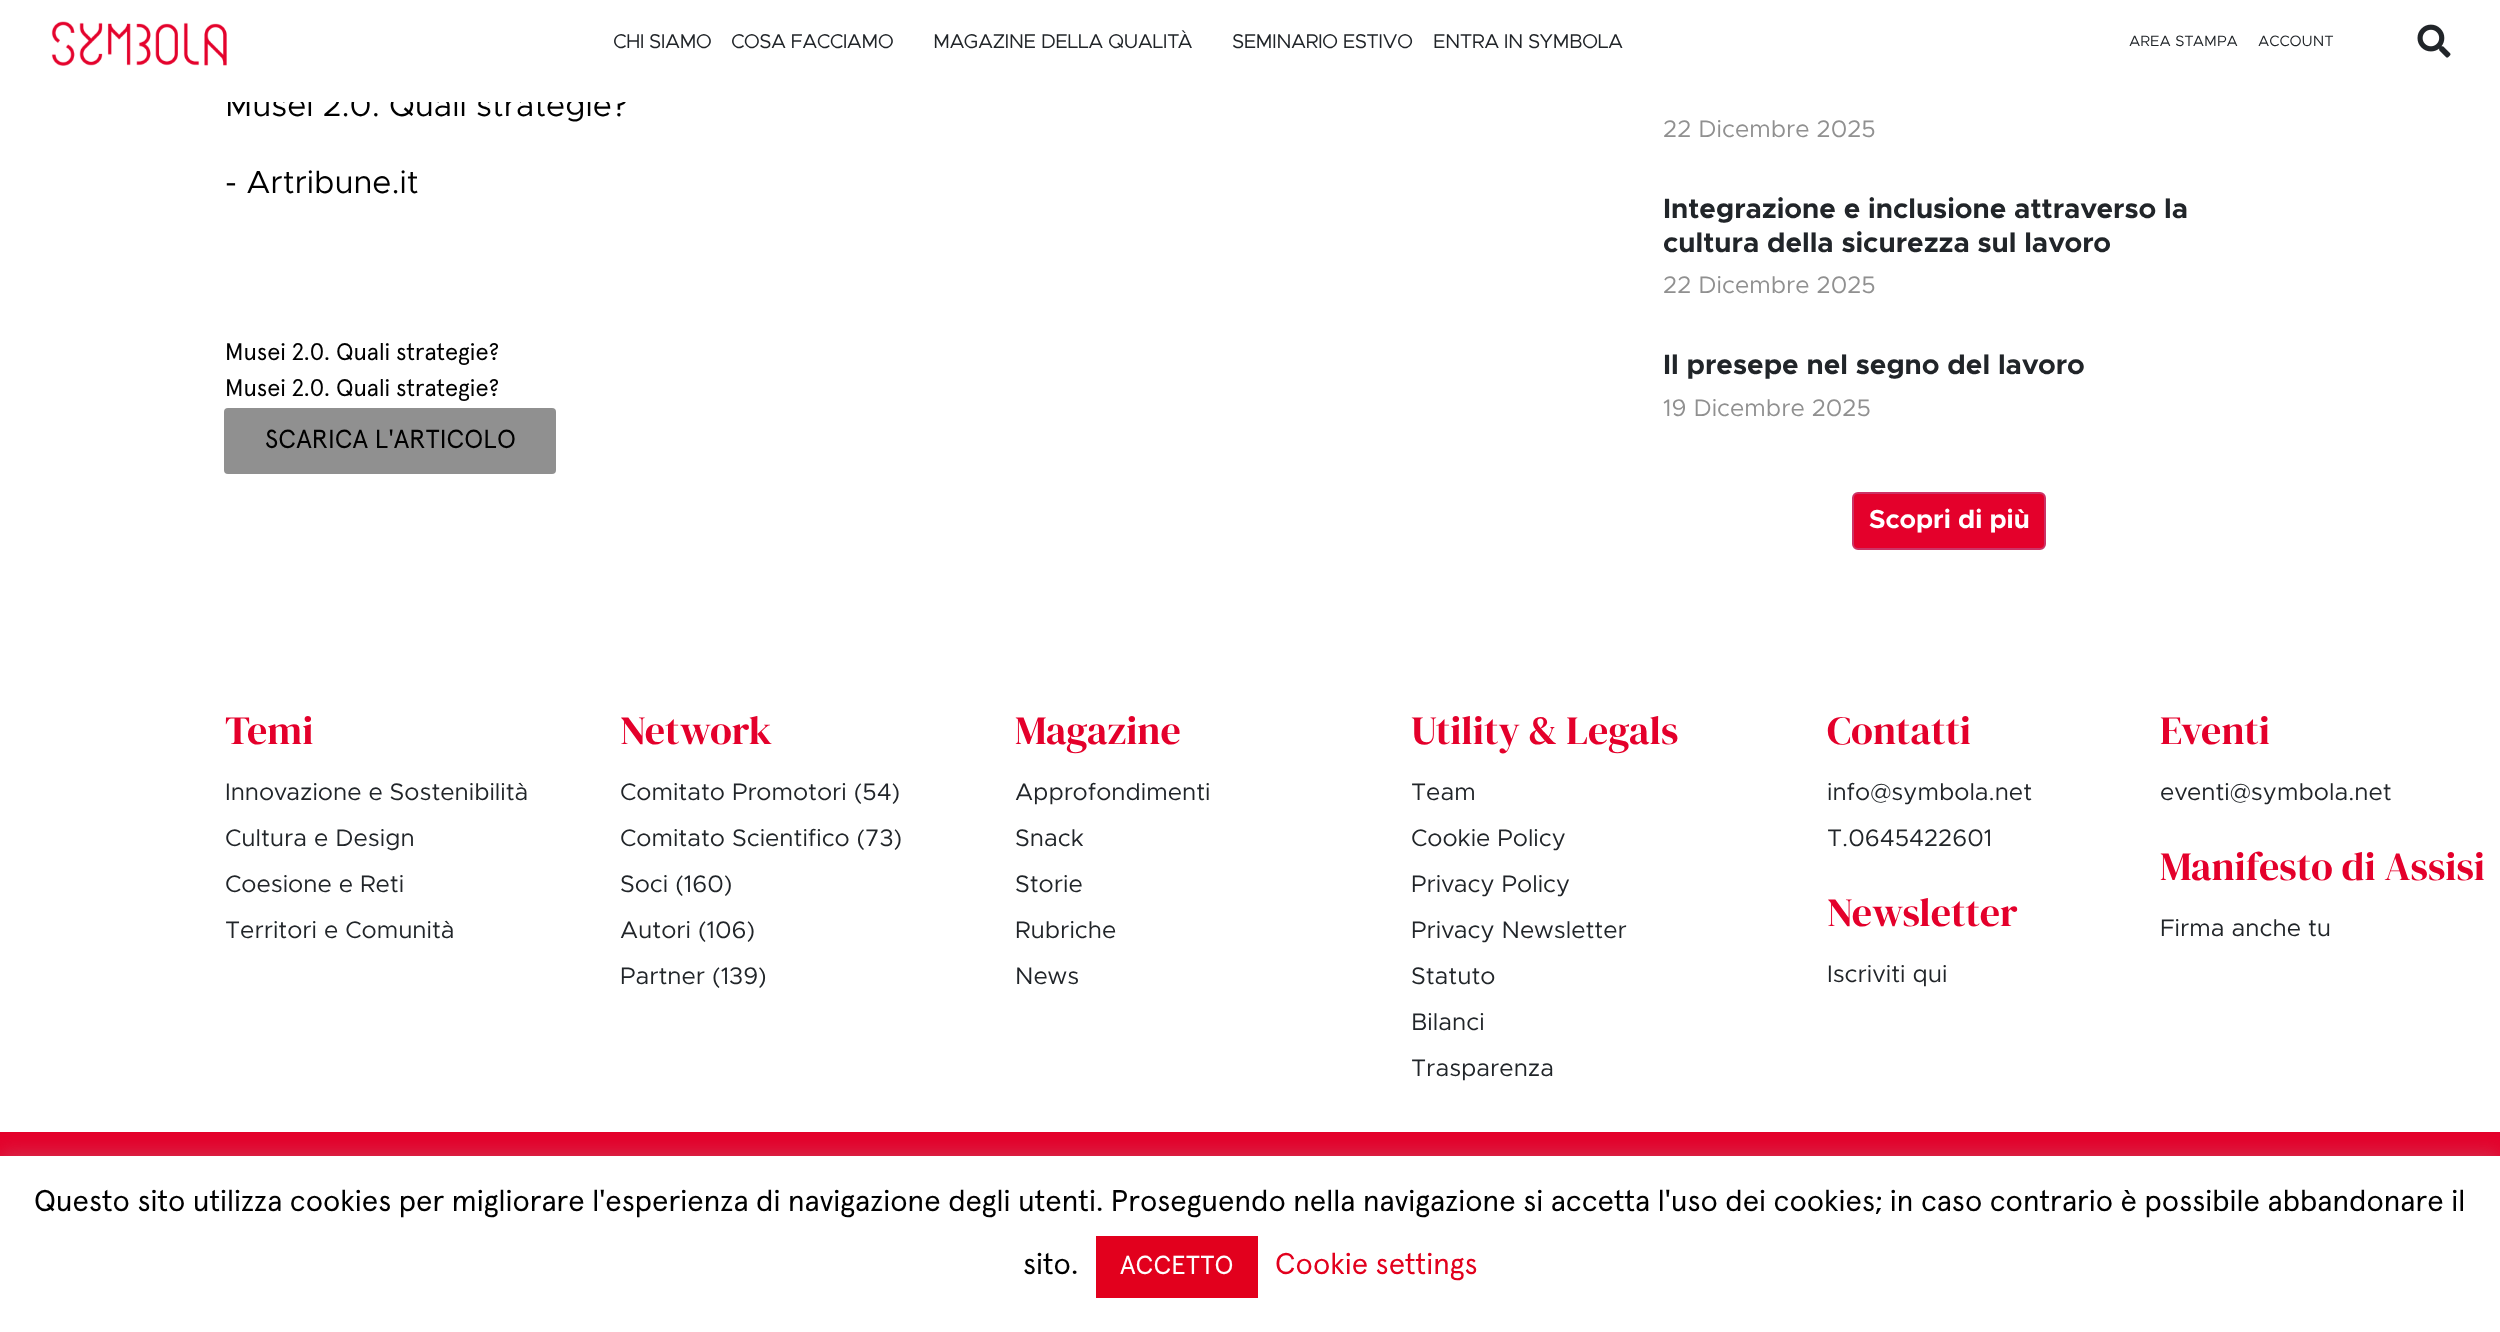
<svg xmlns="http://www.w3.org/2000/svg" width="2500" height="1332">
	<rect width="100%" height="100%" fill="#FFFFFF" />
	<text x="225" y="116" font-family="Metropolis" font-size="32" fill="#000000">Musei 2.0. Quali strategie?</text>
	<rect x="227" y="93" width="400" height="9" fill="#FFFFFF" />
	<image x="51" y="21" width="176" height="45" href="assets/img1.png" />
	<g font-family="Metropolis" font-size="20" letter-spacing="-0.6" fill="#212529">
		<text x="613" y="48">CHI SIAMO</text>
		<text x="731" y="48">COSA FACCIAMO</text>
		<text x="933" y="48">MAGAZINE DELLA QUALITÀ</text>
		<text x="1232" y="48">SEMINARIO ESTIVO</text>
		<text x="1433" y="48">ENTRA IN SYMBOLA</text>
	</g>
	<g font-family="Metropolis" font-size="15" fill="#212529">
		<text x="2129" y="46">AREA STAMPA</text>
		<text x="2258" y="46">ACCOUNT</text>
	</g>
	<image x="2417" y="24" width="34" height="34" href="assets/img2.png" />
	<text x="225" y="193" font-family="Metropolis" font-size="32" fill="#000000">- Artribune.it</text>
	<g font-family="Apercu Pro" font-size="24" fill="#000000">
		<text x="225" y="360">Musei 2.0. Quali strategie?</text>
		<text x="225" y="396">Musei 2.0. Quali strategie?</text>
	</g>
	<rect x="224" y="408" width="332" height="66" rx="4" fill="#909090" />
	<text x="265" y="448" font-family="Apercu Pro" font-size="26" fill="#000000">SCARICA L'ARTICOLO</text>
	<text x="1663" y="137" font-family="Metropolis" font-size="24" fill="#909090">22 Dicembre 2025</text>
	<g font-family="Metropolis" font-size="28" font-weight="700" fill="#212529">
		<text x="1663" y="218">Integrazione e inclusione attraverso la</text>
		<text x="1663" y="252">cultura della sicurezza sul lavoro</text>
	</g>
	<text x="1663" y="293" font-family="Metropolis" font-size="24" fill="#909090">22 Dicembre 2025</text>
	<text x="1663" y="374" font-family="Metropolis" font-size="28" font-weight="700" fill="#212529">Il presepe nel segno del lavoro</text>
	<text x="1663" y="416" font-family="Metropolis" font-size="24" fill="#909090">19 Dicembre 2025</text>
	<rect x="1853" y="493" width="192" height="56" rx="5" fill="#E4002B" stroke="#CC3366" stroke-width="2" />
	<text x="1869" y="528" font-family="Metropolis" font-size="26" font-weight="700" fill="#FFFFFF">Scopri di più</text>
	<text x="225" y="744" font-family="DM Serif Display" font-size="40" fill="#E4002B">Temi</text>
	<g font-family="Metropolis" font-size="24" fill="#212529">
		<text x="225" y="800">Innovazione e Sostenibilità</text>
		<text x="225" y="846">Cultura e Design</text>
		<text x="225" y="892">Coesione e Reti</text>
		<text x="225" y="938">Territori e Comunità</text>
	</g>
	<text x="620" y="744" font-family="DM Serif Display" font-size="40" fill="#E4002B">Network</text>
	<g font-family="Metropolis" font-size="24" fill="#212529">
		<text x="620" y="800">Comitato Promotori (54)</text>
		<text x="620" y="846">Comitato Scientifico (73)</text>
		<text x="620" y="892">Soci (160)</text>
		<text x="620" y="938">Autori (106)</text>
		<text x="620" y="984">Partner (139)</text>
	</g>
	<text x="1015" y="744" font-family="DM Serif Display" font-size="40" fill="#E4002B">Magazine</text>
	<g font-family="Metropolis" font-size="24" fill="#212529">
		<text x="1015" y="800">Approfondimenti</text>
		<text x="1015" y="846">Snack</text>
		<text x="1015" y="892">Storie</text>
		<text x="1015" y="938">Rubriche</text>
		<text x="1015" y="984">News</text>
	</g>
	<text x="1411" y="744" font-family="DM Serif Display" font-size="40" fill="#E4002B">Utility &amp; Legals</text>
	<g font-family="Metropolis" font-size="24" fill="#212529">
		<text x="1411" y="800">Team</text>
		<text x="1411" y="846">Cookie Policy</text>
		<text x="1411" y="892">Privacy Policy</text>
		<text x="1411" y="938">Privacy Newsletter</text>
		<text x="1411" y="984">Statuto</text>
		<text x="1411" y="1030">Bilanci</text>
		<text x="1411" y="1076">Trasparenza</text>
	</g>
	<text x="1827" y="744" font-family="DM Serif Display" font-size="40" fill="#E4002B">Contatti</text>
	<g font-family="Metropolis" font-size="24" fill="#212529">
		<text x="1827" y="800">info@symbola.net</text>
		<text x="1827" y="846">T.0645422601</text>
	</g>
	<text x="1827" y="926" font-family="DM Serif Display" font-size="40" fill="#E4002B">Newsletter</text>
	<text x="1827" y="982" font-family="Metropolis" font-size="24" fill="#212529">Iscriviti qui</text>
	<text x="2160" y="744" font-family="DM Serif Display" font-size="40" fill="#E4002B">Eventi</text>
	<text x="2160" y="800" font-family="Metropolis" font-size="24" fill="#212529">eventi@symbola.net</text>
	<text x="2160" y="880" font-family="DM Serif Display" font-size="40" fill="#E4002B">Manifesto di Assisi</text>
	<text x="2160" y="936" font-family="Metropolis" font-size="24" fill="#212529">Firma anche tu</text>
	<rect x="0" y="1132" width="2500" height="24" fill="#E4002B" />
	<rect x="0" y="1154" width="2500" height="176" fill="#ACABAB" fill-opacity="0.3" filter="blur(10px)" />
	<rect x="0" y="1156" width="2500" height="176" fill="#FFFFFF" />
	<g font-family="Apercu Pro" font-size="30" fill="#000000">
		<text x="34" y="1211">Questo sito utilizza cookies per migliorare l'esperienza di navigazione degli utenti. Proseguendo nella navigazione si accetta l'uso dei cookies; in caso contrario è possibile abbandonare il</text>
		<text x="1023" y="1274">sito.</text>
	</g>
	<rect x="1096" y="1236" width="162" height="62" fill="#E2001D" />
	<text x="1120" y="1274" font-family="Apercu Pro" font-size="26" fill="#FFFFFF">ACCETTO</text>
	<text x="1275" y="1274" font-family="Apercu Pro" font-size="30" fill="#E2001D">Cookie settings</text>
</svg>
